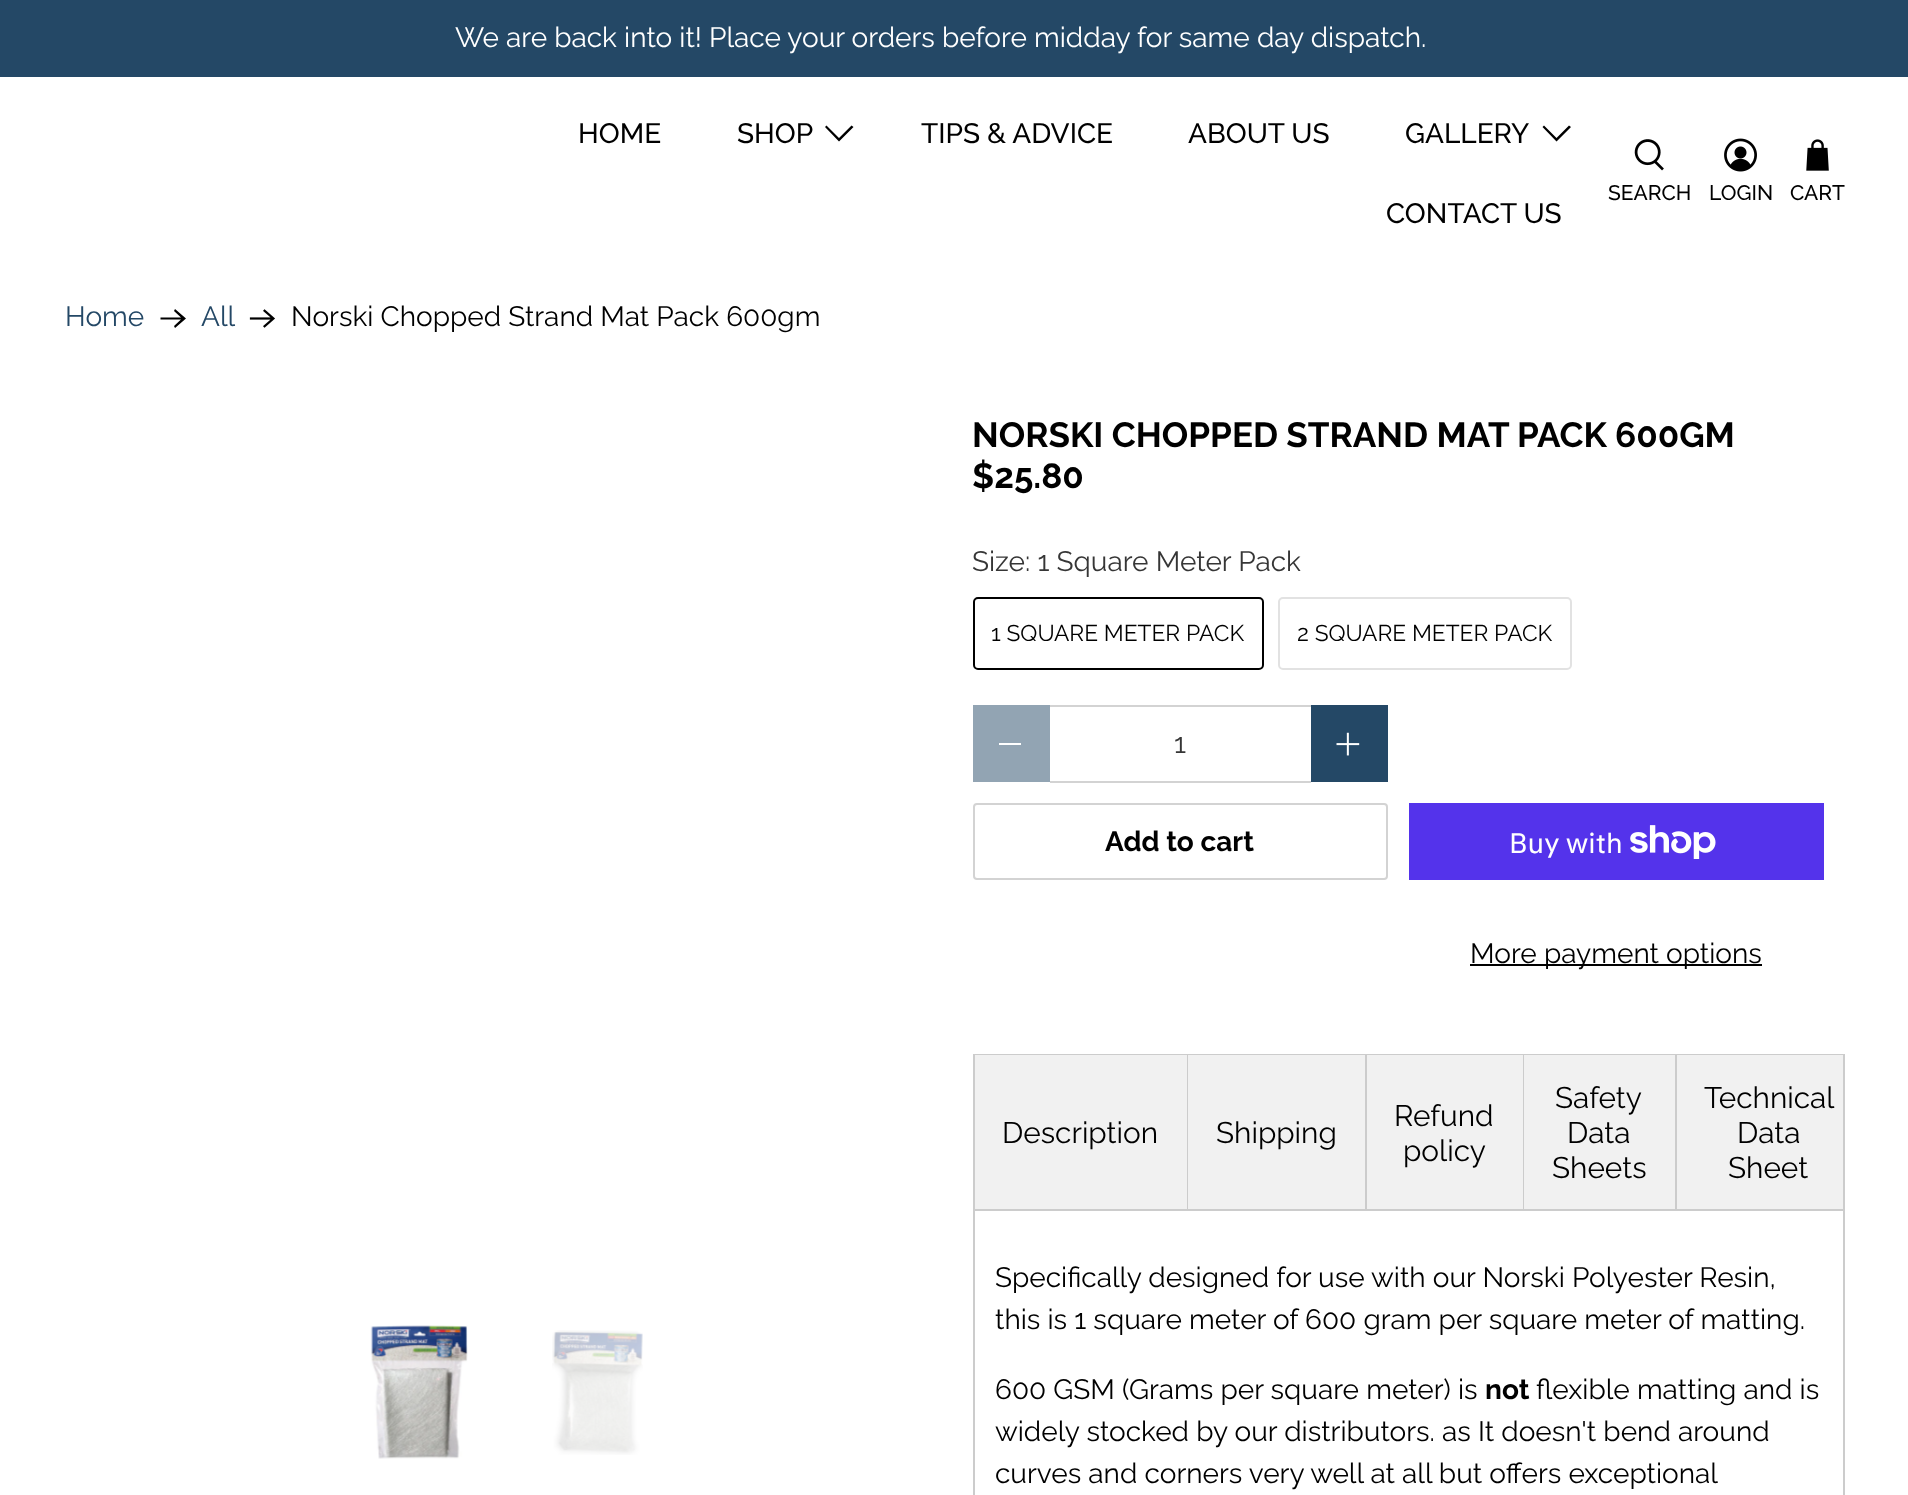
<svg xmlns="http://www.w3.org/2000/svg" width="1908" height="1495">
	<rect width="100%" height="100%" fill="#FFFFFF" />
	<rect x="0" y="0" width="1908" height="77" fill="#244866" />
	<text x="455" y="47" font-family="Raleway" font-size="28" fill="#FFFFFF">We are back into it! Place your orders before midday for same day dispatch.</text>
	<g font-family="Raleway" font-size="28" font-weight="500" fill="#000000">
		<text x="578" y="143">HOME</text>
		<text x="737" y="143">SHOP</text>
	</g>
	<path d="M839 141.5L825 127L826.5 125.5L839 138L851.5 125.5L853.5 127Z" fill="#000000" />
	<g font-family="Raleway" font-size="28" font-weight="500" fill="#000000">
		<text x="921" y="143">TIPS &amp; ADVICE</text>
		<text x="1188" y="143">ABOUT US</text>
		<text x="1405" y="143">GALLERY</text>
	</g>
	<path d="M1556.5 141.5L1542.5 127L1544 125.5L1556.5 138L1569 125.5L1571 127Z" fill="#000000" />
	<text x="1386" y="223" font-family="Raleway" font-size="28" font-weight="500" fill="#000000">CONTACT US</text>
	<image x="1634" y="139" width="30" height="32" href="assets/img1.png" />
	<text x="1608" y="200" font-family="Raleway" font-size="21" font-weight="500" fill="#000000">SEARCH</text>
	<image x="1724" y="138" width="33" height="34" href="assets/img2.png" />
	<text x="1709" y="200" font-family="Raleway" font-size="21" font-weight="500" fill="#000000">LOGIN</text>
	<image x="1806" y="139" width="23" height="32" href="assets/img3.png" />
	<text x="1790" y="200" font-family="Raleway" font-size="21" font-weight="500" fill="#000000">CART</text>
	<text x="65" y="326" font-family="Raleway" font-size="28" fill="#244866">Home</text>
	<path d="M175 309L174 311L181 317.5H160.5V319.5H181L174 326L175 328L186 318.5Z" fill="#000000" />
	<text x="201" y="326" font-family="Raleway" font-size="28" fill="#244866">All</text>
	<image x="249" y="309" width="26" height="19" href="assets/img4.png" />
	<text x="291" y="326" font-family="Raleway" font-size="28" fill="#000000">Norski Chopped Strand Mat Pack 600gm</text>
	<image x="370" y="1325" width="98" height="134" href="assets/img5.png" />
	<image x="552" y="1330" width="91" height="125" href="assets/img6.png" />
	<g font-family="Raleway" font-size="35" font-weight="700" fill="#000000">
		<text x="972" y="447">NORSKI CHOPPED STRAND MAT PACK 600GM</text>
		<text x="972" y="488">$25.80</text>
	</g>
	<text x="972" y="571" font-family="Raleway" font-size="28" fill="#363636">Size: 1 Square Meter Pack</text>
	<rect x="974" y="598" width="289" height="71" rx="4" fill="none" stroke="#000000" stroke-width="2" />
	<text x="991" y="641" font-family="Raleway" font-size="22.75" fill="#000000">1 SQUARE METER PACK</text>
	<rect x="1279" y="598" width="292" height="71" rx="4" fill="none" stroke="#E2E2E2" stroke-width="2" />
	<text x="1297" y="641" font-family="Raleway" font-size="22.75" fill="#000000">2 SQUARE METER PACK</text>
	<rect x="973" y="705" width="77" height="77" fill="#92A4B3" />
	<rect x="999" y="743" width="22" height="2" fill="#FFFFFF" />
	<rect x="1050" y="705" width="261" height="2" fill="#D3D3D3" />
	<rect x="1050" y="781" width="261" height="2" fill="#D3D3D3" />
	<text x="1174" y="753" font-family="Raleway" font-size="28" fill="#363636">1</text>
	<rect x="1311" y="705" width="77" height="77" fill="#244866" />
	<image x="1336" y="732" width="24" height="24" href="assets/img7.png" />
	<rect x="974" y="804" width="413" height="75" rx="3" fill="none" stroke="#D3D3D3" stroke-width="2" />
	<text x="1105" y="851" font-family="Raleway" font-size="28" font-weight="700" fill="#000000">Add to cart</text>
	<rect x="1409" y="803" width="415" height="77" fill="#5433EB" />
	<text x="1509" y="853" font-family="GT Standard" font-size="28" fill="#FFFFFF">Buy with</text>
	<image x="1630" y="825" width="86" height="34" href="assets/img8.png" />
	<rect x="1470" y="964" width="292" height="2" fill="#000000" />
	<text x="1470" y="963" font-family="Raleway" font-size="28" fill="#000000">More payment options</text>
	<rect x="974" y="1055" width="870" height="155" fill="none" stroke="#CCCCCC" stroke-width="2" />
	<rect x="975" y="1055" width="212" height="154" fill="#F1F1F1" />
	<rect x="1187" y="1055" width="1" height="154" fill="#CCCCCC" />
	<text x="1002" y="1143" font-family="Raleway" font-size="29.75" fill="#000000">Description</text>
	<rect x="1188" y="1055" width="177" height="154" fill="#F1F1F1" />
	<rect x="1365" y="1055" width="2" height="154" fill="#CCCCCC" />
	<text x="1216" y="1143" font-family="Raleway" font-size="29.75" fill="#000000">Shipping</text>
	<rect x="1367" y="1055" width="156" height="154" fill="#F1F1F1" />
	<rect x="1523" y="1055" width="1" height="154" fill="#CCCCCC" />
	<g font-family="Raleway" font-size="29.75" fill="#000000">
		<text x="1394" y="1126">Refund</text>
		<text x="1403" y="1161">policy</text>
	</g>
	<rect x="1524" y="1055" width="151" height="154" fill="#F1F1F1" />
	<rect x="1675" y="1055" width="2" height="154" fill="#CCCCCC" />
	<g font-family="Raleway" font-size="29.75" fill="#000000">
		<text x="1555" y="1108">Safety</text>
		<text x="1567" y="1143">Data</text>
		<text x="1552" y="1178">Sheets</text>
	</g>
	<rect x="1677" y="1055" width="166" height="154" fill="#F1F1F1" />
	<g font-family="Raleway" font-size="29.75" fill="#000000">
		<text x="1704" y="1108">Technical</text>
		<text x="1737" y="1143">Data</text>
		<text x="1728" y="1178">Sheet</text>
	</g>
	<rect x="1843" y="1211" width="2" height="284" fill="#CCCCCC" />
	<rect x="973" y="1211" width="2" height="284" fill="#CCCCCC" />
	<g font-family="Raleway" font-size="28" fill="#000000">
		<text x="995" y="1287">Specifically designed for use with our Norski Polyester Resin,</text>
		<text x="995" y="1329">this is 1 square meter of 600 gram per square meter of matting.</text>
		<text x="995" y="1399">600 GSM (Grams per square meter) is</text>
	</g>
	<text x="1485" y="1399" font-family="Raleway" font-size="28" font-weight="700" fill="#000000">not</text>
	<g font-family="Raleway" font-size="28" fill="#000000">
		<text x="1536" y="1399">flexible matting and is</text>
		<text x="995" y="1441">widely stocked by our distributors. as It doesn't bend around</text>
		<text x="995" y="1483">curves and corners very well at all but offers exceptional</text>
	</g>
</svg>
